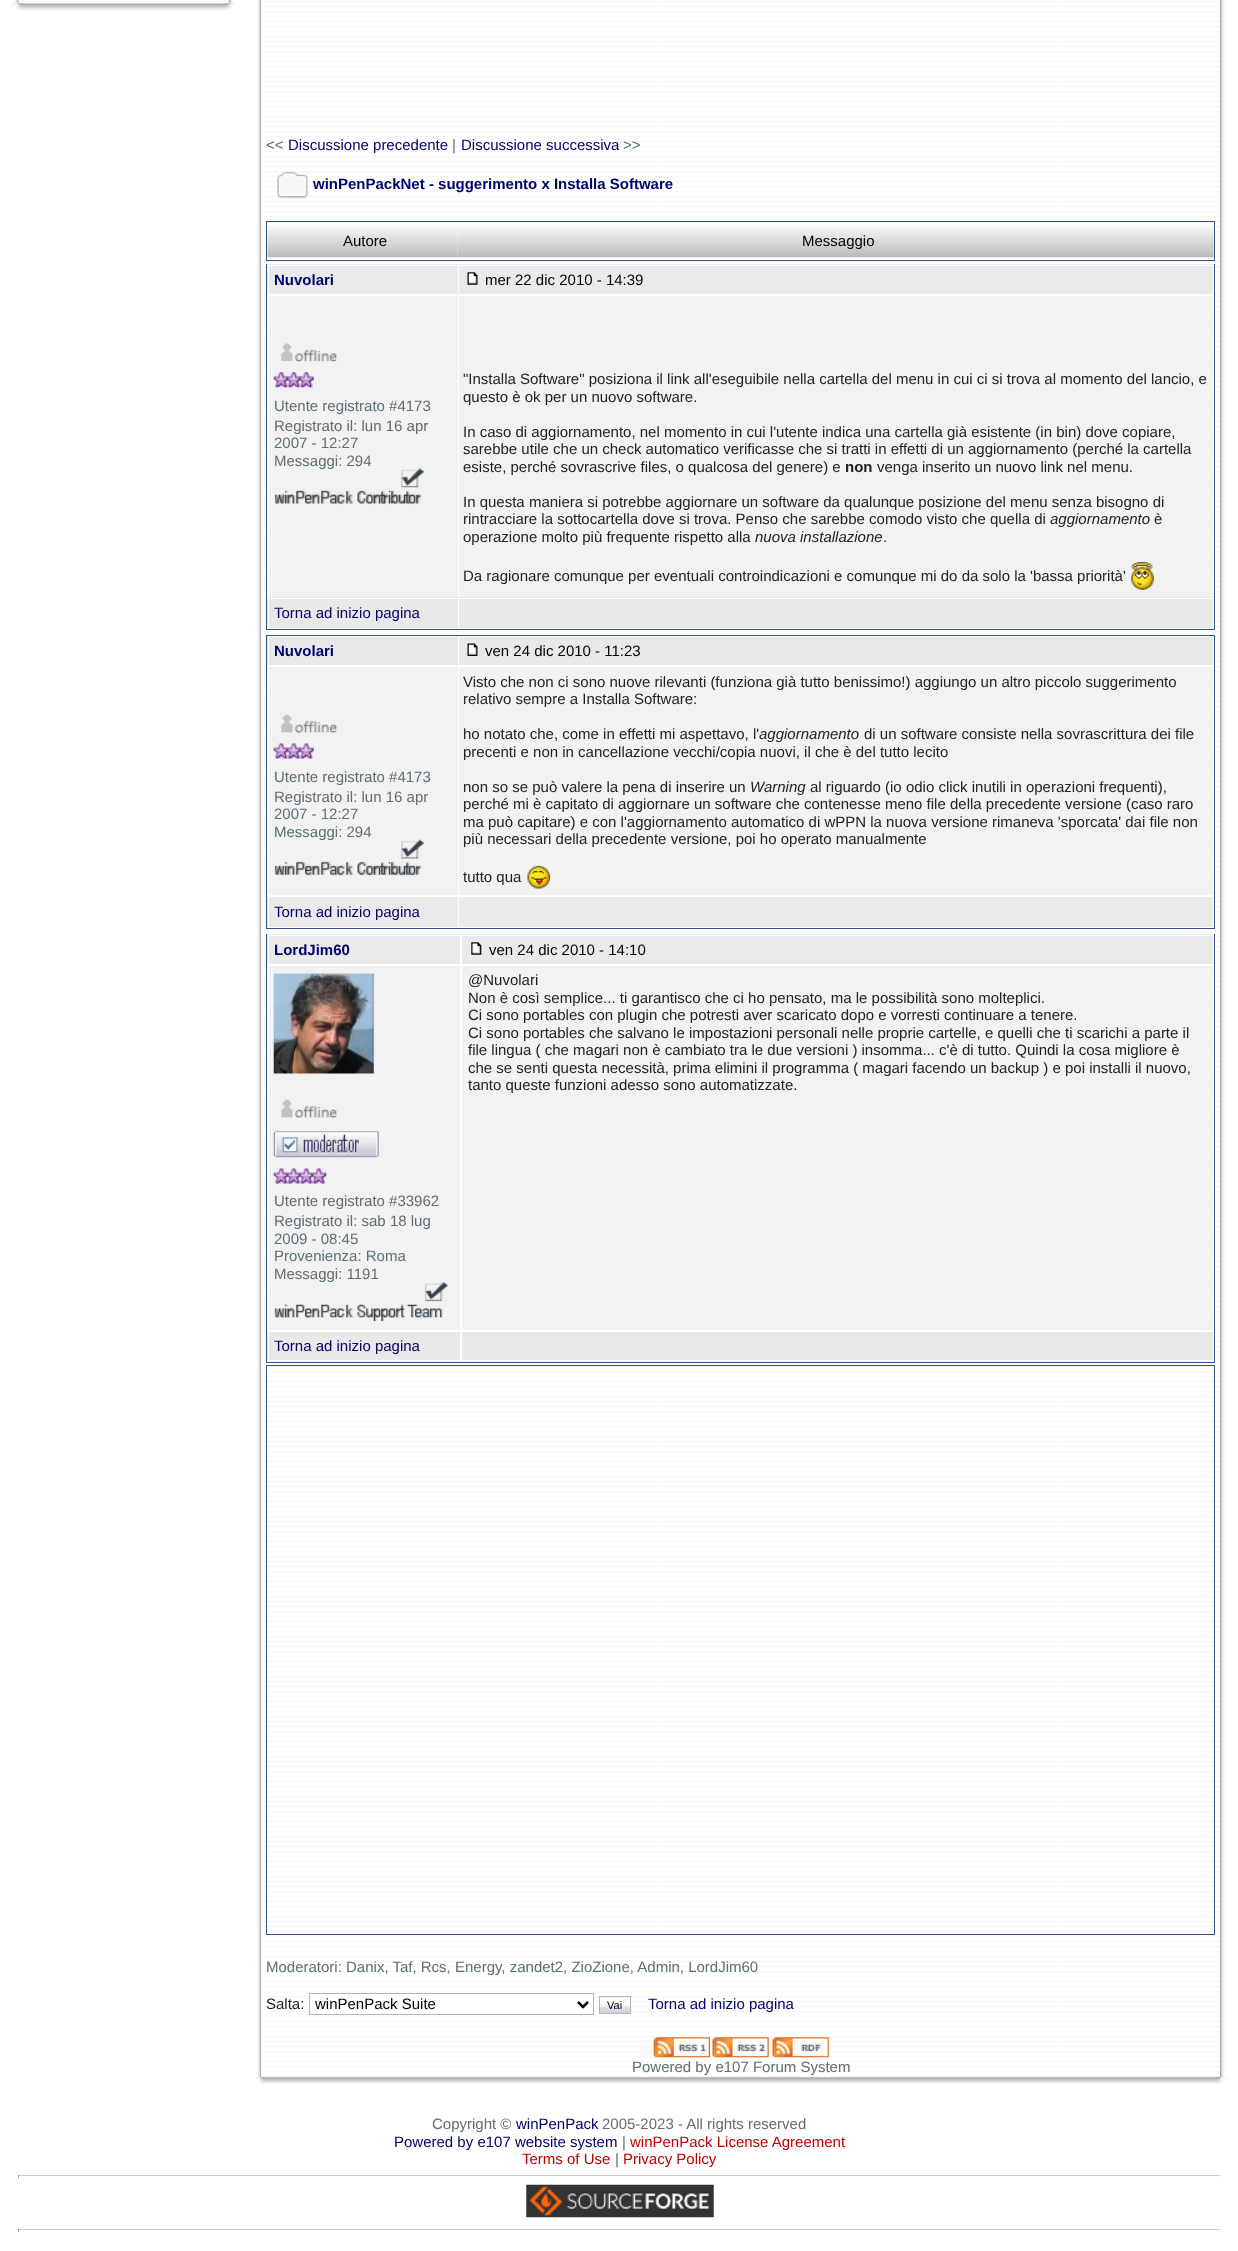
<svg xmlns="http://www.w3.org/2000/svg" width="1238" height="2251">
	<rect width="100%" height="100%" fill="#FFFFFF" />
	<image x="14" y="0" width="5" height="4" href="assets/img1.png" />
	<image x="228" y="0" width="5" height="4" href="assets/img2.png" />
	<image x="18" y="0" width="211" height="4" href="assets/img3.png" />
	<image x="12" y="3" width="223" height="8" href="assets/img4.png" />
	<image x="12" y="3" width="12" height="8" href="assets/img5.png" />
	<image x="223" y="3" width="12" height="8" href="assets/img6.png" />
	<image x="257" y="0" width="5" height="2078" href="assets/img7.png" />
	<image x="1220" y="0" width="5" height="2078" href="assets/img8.png" />
	<image x="261" y="0" width="959" height="2077" href="assets/img9.png" />
	<text x="266" y="150" font-family="Liberation Sans" font-size="15" fill="#5D6E75">&lt;&lt;</text>
	<text x="288" y="150" font-family="Liberation Sans" font-size="15" fill="#00006E">Discussione precedente</text>
	<text x="452" y="150" font-family="Liberation Sans" font-size="15" fill="#5D6E75">|</text>
	<text x="461" y="150" font-family="Liberation Sans" font-size="15" fill="#00006E">Discussione successiva</text>
	<text x="623" y="150" font-family="Liberation Sans" font-size="15" fill="#5D6E75">&gt;&gt;</text>
	<image x="277" y="172" width="31" height="27" href="assets/img10.png" />
	<text x="313" y="189" font-family="Liberation Sans" font-size="15" font-weight="700" fill="#00006E">winPenPackNet - suggerimento x Installa Software</text>
	<rect x="266.5" y="221.5" width="948" height="39" fill="none" stroke="#345487" />
	<image x="267" y="222" width="191" height="36" href="assets/img11.png" />
	<text x="343" y="246" font-family="Liberation Sans" font-size="15" fill="#000000">Autore</text>
	<image x="457" y="222" width="757" height="36" href="assets/img12.png" />
	<text x="802" y="246" font-family="Liberation Sans" font-size="15" fill="#000000">Messaggio</text>
	<rect x="266.5" y="264.5" width="948" height="365" fill="none" stroke="#345487" />
	<rect x="267" y="264" width="190" height="31" fill="#EAEAEA" />
	<rect x="268.5" y="265.5" width="189" height="29" fill="none" stroke="#FFFFFF" />
	<text x="274" y="285" font-family="Liberation Sans" font-size="15" font-weight="700" fill="#00006E">Nuvolari</text>
	<rect x="457" y="264" width="757" height="31" fill="#EAEAEA" />
	<rect x="458.5" y="265.5" width="755" height="29" fill="none" stroke="#FFFFFF" />
	<image x="467" y="272" width="11" height="13" href="assets/img13.png" />
	<text x="485" y="285" font-family="Liberation Sans" font-size="15" fill="#000000">mer 22 dic 2010 - 14:39</text>
	<rect x="267" y="295" width="190" height="302" fill="#F2F2F2" />
	<rect x="268.5" y="295.5" width="189" height="302" fill="none" stroke="#FFFFFF" />
	<image x="281" y="343" width="57" height="20" href="assets/img14.png" />
	<image x="273" y="372" width="41" height="16" href="assets/img15.png" />
	<g font-family="Liberation Sans" font-size="15" fill="#5D6E75">
		<text x="274" y="411">Utente registrato #4173</text>
		<text x="274" y="431">Registrato il: lun 16 apr</text>
		<text x="274" y="448">2007 - 12:27</text>
		<text x="274" y="466">Messaggi: 294</text>
	</g>
	<image x="274" y="468" width="150" height="37" href="assets/img16.png" />
	<rect x="457" y="295" width="756" height="302" fill="#F2F2F2" />
	<rect x="458.5" y="295.5" width="755" height="302" fill="none" stroke="#FFFFFF" />
	<g font-family="Liberation Sans" font-size="15" fill="#222222">
		<text x="463" y="384">"Installa Software" posiziona il link all'eseguibile nella cartella del menu in cui ci si trova al momento del lancio, e</text>
		<text x="463" y="402">questo è ok per un nuovo software.</text>
		<text x="463" y="437">In caso di aggiornamento, nel momento in cui l'utente indica una cartella già esistente (in bin) dove copiare,</text>
		<text x="463" y="454">sarebbe utile che un check automatico verificasse che si tratti in effetti di un aggiornamento (perché la cartella</text>
		<text x="463" y="472">esiste, perché sovrascrive files, o qualcosa del genere) e</text>
	</g>
	<text x="845" y="472" font-family="Liberation Sans" font-size="15" font-weight="700" fill="#222222">non</text>
	<g font-family="Liberation Sans" font-size="15" fill="#222222">
		<text x="877" y="472">venga inserito un nuovo link nel menu.</text>
		<text x="463" y="507">In questa maniera si potrebbe aggiornare un software da qualunque posizione del menu senza bisogno di</text>
		<text x="463" y="524">rintracciare la sottocartella dove si trova. Penso che sarebbe comodo visto che quella di</text>
	</g>
	<text x="1050" y="524" font-family="Liberation Sans" font-size="15" font-style="italic" fill="#222222">aggiornamento</text>
	<g font-family="Liberation Sans" font-size="15" fill="#222222">
		<text x="1154" y="524">è</text>
		<text x="463" y="542">operazione molto più frequente rispetto alla</text>
	</g>
	<text x="755" y="542" font-family="Liberation Sans" font-size="15" font-style="italic" fill="#222222">nuova installazione</text>
	<g font-family="Liberation Sans" font-size="15" fill="#222222">
		<text x="883" y="542">.</text>
		<text x="463" y="581">Da ragionare comunque per eventuali controindicazioni e comunque mi do da solo la 'bassa priorità'</text>
	</g>
	<image x="1131" y="562" width="23" height="28" href="assets/img17.png" />
	<rect x="267" y="597" width="190" height="32" fill="#E9E9E9" />
	<rect x="268.5" y="598.5" width="189" height="30" fill="none" stroke="#FFFFFF" />
	<text x="274" y="618" font-family="Liberation Sans" font-size="15" fill="#00006E">Torna ad inizio pagina</text>
	<rect x="457" y="597" width="757" height="32" fill="#E9E9E9" />
	<rect x="458.5" y="598.5" width="755" height="30" fill="none" stroke="#FFFFFF" />
	<rect x="266.5" y="635.5" width="948" height="293" fill="none" stroke="#345487" />
	<rect x="267" y="636" width="190" height="30" fill="#E9E9E9" />
	<rect x="268.5" y="636.5" width="189" height="29" fill="none" stroke="#FFFFFF" />
	<text x="274" y="656" font-family="Liberation Sans" font-size="15" font-weight="700" fill="#00006E">Nuvolari</text>
	<rect x="457" y="636" width="756" height="30" fill="#E9E9E9" />
	<rect x="458.5" y="636.5" width="755" height="29" fill="none" stroke="#FFFFFF" />
	<image x="467" y="643" width="11" height="13" href="assets/img18.png" />
	<text x="485" y="656" font-family="Liberation Sans" font-size="15" fill="#000000">ven 24 dic 2010 - 11:23</text>
	<rect x="267" y="666" width="190" height="230" fill="#F2F2F2" />
	<rect x="268.5" y="666.5" width="189" height="229" fill="none" stroke="#FFFFFF" />
	<image x="281" y="714" width="57" height="20" href="assets/img19.png" />
	<image x="273" y="743" width="41" height="16" href="assets/img20.png" />
	<g font-family="Liberation Sans" font-size="15" fill="#5D6E75">
		<text x="274" y="782">Utente registrato #4173</text>
		<text x="274" y="802">Registrato il: lun 16 apr</text>
		<text x="274" y="819">2007 - 12:27</text>
		<text x="274" y="837">Messaggi: 294</text>
	</g>
	<image x="274" y="839" width="150" height="37" href="assets/img21.png" />
	<rect x="457" y="666" width="756" height="230" fill="#F2F2F2" />
	<rect x="458.5" y="666.5" width="755" height="229" fill="none" stroke="#FFFFFF" />
	<g font-family="Liberation Sans" font-size="15" fill="#222222">
		<text x="463" y="687">Visto che non ci sono nuove rilevanti (funziona già tutto benissimo!) aggiungo un altro piccolo suggerimento</text>
		<text x="463" y="704">relativo sempre a Installa Software:</text>
		<text x="463" y="739">ho notato che, come in effetti mi aspettavo, l'</text>
	</g>
	<text x="759" y="739" font-family="Liberation Sans" font-size="15" font-style="italic" fill="#222222">aggiornamento</text>
	<g font-family="Liberation Sans" font-size="15" fill="#222222">
		<text x="864" y="739">di un software consiste nella sovrascrittura dei file</text>
		<text x="463" y="757">precenti e non in cancellazione vecchi/copia nuovi, il che è del tutto lecito</text>
		<text x="463" y="792">non so se può valere la pena di inserire un</text>
	</g>
	<text x="750" y="792" font-family="Liberation Sans" font-size="15" font-style="italic" fill="#222222">Warning</text>
	<g font-family="Liberation Sans" font-size="15" fill="#222222">
		<text x="810" y="792">al riguardo (io odio click inutili in operazioni frequenti),</text>
		<text x="463" y="809">perché mi è capitato di aggiornare un software che contenesse meno file della precedente versione (caso raro</text>
		<text x="463" y="827">ma può capitare) e con l'aggiornamento automatico di wPPN la nuova versione rimaneva 'sporcata' dai file non</text>
		<text x="463" y="844">più necessari della precedente versione, poi ho operato manualmente</text>
		<text x="463" y="882">tutto qua</text>
	</g>
	<image x="527" y="865" width="24" height="24" href="assets/img22.png" />
	<rect x="267" y="896" width="190" height="32" fill="#EAEAEA" />
	<rect x="268.5" y="896.5" width="189" height="31" fill="none" stroke="#FFFFFF" />
	<text x="274" y="917" font-family="Liberation Sans" font-size="15" fill="#00006E">Torna ad inizio pagina</text>
	<rect x="457" y="896" width="756" height="32" fill="#EAEAEA" />
	<rect x="458.5" y="896.5" width="755" height="31" fill="none" stroke="#FFFFFF" />
	<rect x="266.5" y="934.5" width="948" height="428" fill="none" stroke="#345487" />
	<rect x="267" y="934" width="195" height="31" fill="#EAEAEA" />
	<rect x="268.5" y="935.5" width="192" height="29" fill="none" stroke="#FFFFFF" />
	<text x="274" y="955" font-family="Liberation Sans" font-size="15" font-weight="700" fill="#00006E">LordJim60</text>
	<rect x="462" y="934" width="752" height="30" fill="#EAEAEA" />
	<rect x="461.5" y="935.5" width="752" height="29" fill="none" stroke="#FFFFFF" />
	<image x="471" y="942" width="11" height="13" href="assets/img23.png" />
	<text x="489" y="955" font-family="Liberation Sans" font-size="15" fill="#000000">ven 24 dic 2010 - 14:10</text>
	<rect x="461.5" y="965.5" width="752" height="365" fill="#F2F2F2" stroke="#FFFFFF" />
	<g font-family="Liberation Sans" font-size="15" fill="#222222">
		<text x="468" y="985">@Nuvolari</text>
		<text x="468" y="1003">Non è così semplice... ti garantisco che ci ho pensato, ma le possibilità sono molteplici.</text>
		<text x="468" y="1020">Ci sono portables con plugin che potresti aver scaricato dopo e vorresti continuare a tenere.</text>
		<text x="468" y="1038">Ci sono portables che salvano le impostazioni personali nelle proprie cartelle, e quelli che ti scarichi a parte il</text>
		<text x="468" y="1055">file lingua ( che magari non è cambiato tra le due versioni ) insomma... c'è di tutto. Quindi la cosa migliore è</text>
		<text x="468" y="1073">che se senti questa necessità, prima elimini il programma ( magari facendo un backup ) e poi installi il nuovo,</text>
		<text x="468" y="1090">tanto queste funzioni adesso sono automatizzate.</text>
	</g>
	<rect x="267" y="965" width="193" height="366" fill="#F2F2F2" />
	<rect x="268.5" y="965.5" width="192" height="365" fill="none" stroke="#FFFFFF" />
	<image x="273" y="973" width="101" height="101" href="assets/img24.png" />
	<image x="281" y="1099" width="57" height="20" href="assets/img19.png" />
	<image x="273" y="1131" width="106" height="27" href="assets/img25.png" />
	<image x="273" y="1168" width="54" height="16" href="assets/img26.png" />
	<g font-family="Liberation Sans" font-size="15" fill="#5D6E75">
		<text x="274" y="1206">Utente registrato #33962</text>
		<text x="274" y="1226">Registrato il: sab 18 lug</text>
		<text x="274" y="1244">2009 - 08:45</text>
		<text x="274" y="1261">Provenienza: Roma</text>
		<text x="274" y="1279">Messaggi: 1191</text>
	</g>
	<image x="274" y="1282" width="174" height="39" href="assets/img27.png" />
	<rect x="267" y="1331" width="193" height="30" fill="#E9E9E9" />
	<rect x="268.5" y="1331.5" width="192" height="29" fill="none" stroke="#FFFFFF" />
	<text x="274" y="1351" font-family="Liberation Sans" font-size="15" fill="#00006E">Torna ad inizio pagina</text>
	<rect x="461.5" y="1331.5" width="752" height="29" fill="#E9E9E9" stroke="#FFFFFF" />
	<rect x="266.5" y="1365.5" width="948" height="569" fill="none" stroke="#345487" />
	<text x="266" y="1972" font-family="Liberation Sans" font-size="15" fill="#5D6E75">Moderatori: Danix, Taf, Rcs, Energy, zandet2, ZioZione, Admin, LordJim60</text>
	<text x="266" y="2009" font-family="Liberation Sans" font-size="15" fill="#222222">Salta:</text>
	<rect x="310" y="1996" width="283" height="17" fill="#FFFFFF" />
	<rect x="309.5" y="1993.5" width="284" height="21" fill="none" stroke="#B7B5B5" />
	<path d="M578 2002L583 2007L588 2002" fill="none" stroke="#000000" stroke-width="2.5" />
	<text x="315" y="2009" font-family="Liberation Sans" font-size="15" fill="#000000">winPenPack Suite</text>
	<image x="598" y="1996" width="34" height="18" href="assets/img28.png" />
	<rect x="599.5" y="1996.5" width="31" height="17" fill="none" stroke="#B7B5B5" />
	<text x="607" y="2009" font-family="Liberation Sans" font-size="11" fill="#000000">Vai</text>
	<text x="648" y="2009" font-family="Liberation Sans" font-size="15" fill="#00006E">Torna ad inizio pagina</text>
	<image x="653" y="2037" width="57" height="21" href="assets/img29.png" />
	<image x="712" y="2037" width="57" height="21" href="assets/img30.png" />
	<image x="772" y="2037" width="57" height="21" href="assets/img31.png" />
	<text x="632" y="2072" font-family="Liberation Sans" font-size="15" fill="#5D6E75">Powered by e107 Forum System</text>
	<image x="255" y="2077" width="972" height="7" href="assets/img32.png" />
	<image x="255" y="2077" width="11" height="7" href="assets/img33.png" />
	<image x="1215" y="2077" width="12" height="7" href="assets/img34.png" />
	<text x="432" y="2129" font-family="Liberation Sans" font-size="15" fill="#5D6E75">Copyright ©</text>
	<text x="516" y="2129" font-family="Liberation Sans" font-size="15" fill="#00006E">winPenPack</text>
	<text x="602" y="2129" font-family="Liberation Sans" font-size="15" fill="#5D6E75">2005-2023 - All rights reserved</text>
	<text x="394" y="2147" font-family="Liberation Sans" font-size="15" fill="#00006E">Powered by e107 website system</text>
	<text x="622" y="2147" font-family="Liberation Sans" font-size="15" fill="#5D6E75">|</text>
	<g font-family="Liberation Sans" font-size="15" fill="#C00000">
		<text x="630" y="2147">winPenPack License Agreement</text>
		<text x="522" y="2164">Terms of Use</text>
	</g>
	<text x="615" y="2164" font-family="Liberation Sans" font-size="15" fill="#5D6E75">|</text>
	<text x="623" y="2164" font-family="Liberation Sans" font-size="15" fill="#C00000">Privacy Policy</text>
	<rect x="18" y="2175" width="1203" height="1" fill="#CCCCCC" />
	<rect x="1220" y="2175" width="1" height="3" fill="#EEEEEE" />
	<rect x="18" y="2175" width="1" height="3" fill="#9F9F9F" />
	<image x="526" y="2184" width="188" height="34" href="assets/img35.png" />
	<rect x="18" y="2229" width="1203" height="1" fill="#CCCCCC" />
	<rect x="1220" y="2229" width="1" height="3" fill="#EEEEEE" />
	<rect x="18" y="2229" width="1" height="3" fill="#9F9F9F" />
</svg>
